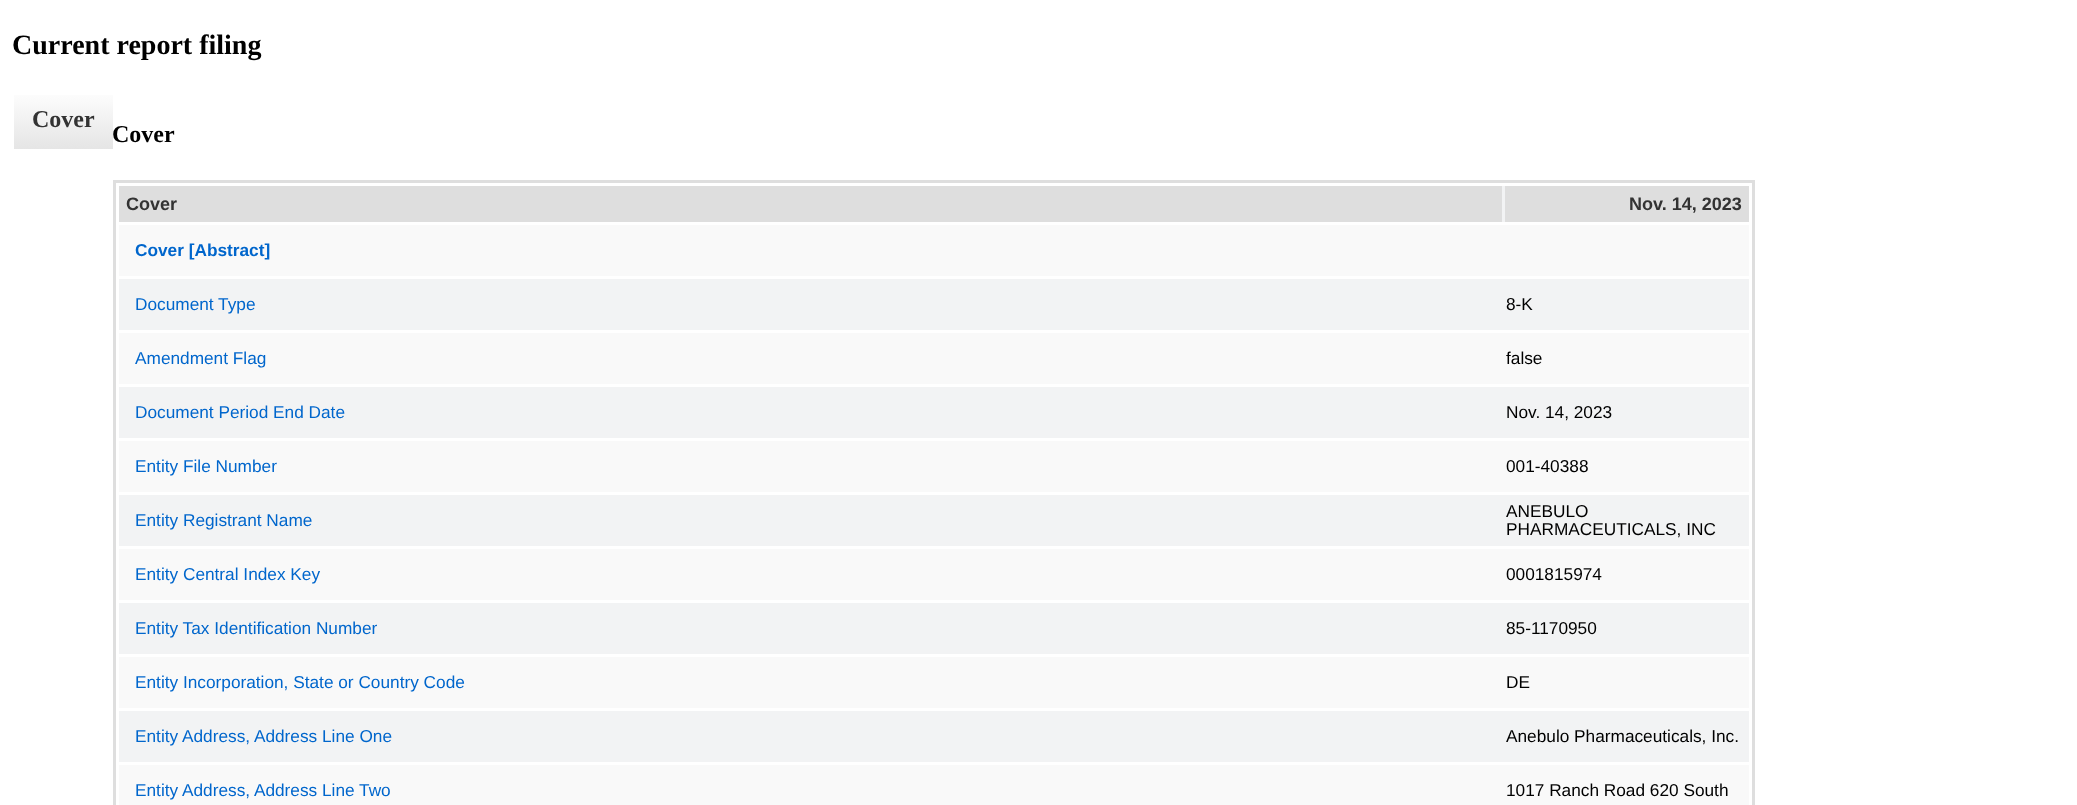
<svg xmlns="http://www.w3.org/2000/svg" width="2077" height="805">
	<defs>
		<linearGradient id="g1" gradientUnits="userSpaceOnUse" x1="63" y1="89" x2="63" y2="149"><stop offset="0" stop-color="#FFFFFF" /><stop offset="1" stop-color="#E5E5E5" /></linearGradient>
	</defs>
	<rect width="100%" height="100%" fill="#FFFFFF" />
	<text x="12" y="54" font-family="Liberation Serif" font-size="28" font-weight="700" fill="#000000">Current report filing</text>
	<rect x="14" y="95" width="99" height="54" fill="url(#g1)" />
	<text x="32" y="127" font-family="Liberation Serif" font-size="24" font-weight="700" fill="#333333">Cover</text>
	<text x="112" y="142" font-family="Liberation Serif" font-size="24" font-weight="700" fill="#000000">Cover</text>
	<rect x="114.5" y="181.5" width="1639" height="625" fill="none" stroke="#DEDEDE" stroke-width="3" />
	<rect x="1502" y="186" width="3" height="36" fill="#F2F3F4" />
	<rect x="119" y="186" width="1383" height="36" fill="#DEDEDE" />
	<text x="126" y="210" font-family="Liberation Sans" font-size="18" font-weight="700" fill="#333333">Cover</text>
	<rect x="1505" y="186" width="244" height="36" fill="#DEDEDE" />
	<text x="1629" y="210" font-family="Liberation Sans" font-size="18" font-weight="700" fill="#333333">Nov. 14, 2023</text>
	<rect x="119" y="225" width="1630" height="51" fill="#F9F9F9" />
	<text x="135" y="256" font-family="Liberation Sans" font-size="17.25" font-weight="700" fill="#0066CC">Cover [Abstract]</text>
	<rect x="119" y="279" width="1630" height="51" fill="#F2F3F4" />
	<text x="135" y="310" font-family="Liberation Sans" font-size="17.25" fill="#0066CC">Document Type</text>
	<text x="1506" y="310" font-family="Liberation Sans" font-size="17.25" fill="#000000">8-K</text>
	<rect x="119" y="333" width="1630" height="51" fill="#F9F9F9" />
	<text x="135" y="364" font-family="Liberation Sans" font-size="17.25" fill="#0066CC">Amendment Flag</text>
	<text x="1506" y="364" font-family="Liberation Sans" font-size="17.25" fill="#000000">false</text>
	<rect x="119" y="387" width="1630" height="51" fill="#F2F3F4" />
	<text x="135" y="418" font-family="Liberation Sans" font-size="17.25" fill="#0066CC">Document Period End Date</text>
	<text x="1506" y="418" font-family="Liberation Sans" font-size="17.25" fill="#000000">Nov. 14, 2023</text>
	<rect x="119" y="441" width="1630" height="51" fill="#F9F9F9" />
	<text x="135" y="472" font-family="Liberation Sans" font-size="17.25" fill="#0066CC">Entity File Number</text>
	<text x="1506" y="472" font-family="Liberation Sans" font-size="17.25" fill="#000000">001-40388</text>
	<rect x="119" y="495" width="1630" height="51" fill="#F2F3F4" />
	<text x="135" y="526" font-family="Liberation Sans" font-size="17.25" fill="#0066CC">Entity Registrant Name</text>
	<g font-family="Liberation Sans" font-size="17.25" fill="#000000">
		<text x="1506" y="517">ANEBULO</text>
		<text x="1506" y="535">PHARMACEUTICALS, INC</text>
	</g>
	<rect x="119" y="549" width="1630" height="51" fill="#F9F9F9" />
	<text x="135" y="580" font-family="Liberation Sans" font-size="17.25" fill="#0066CC">Entity Central Index Key</text>
	<text x="1506" y="580" font-family="Liberation Sans" font-size="17.25" fill="#000000">0001815974</text>
	<rect x="119" y="603" width="1630" height="51" fill="#F2F3F4" />
	<text x="135" y="634" font-family="Liberation Sans" font-size="17.25" fill="#0066CC">Entity Tax Identification Number</text>
	<text x="1506" y="634" font-family="Liberation Sans" font-size="17.25" fill="#000000">85-1170950</text>
	<rect x="119" y="657" width="1630" height="51" fill="#F9F9F9" />
	<text x="135" y="688" font-family="Liberation Sans" font-size="17.25" fill="#0066CC">Entity Incorporation, State or Country Code</text>
	<text x="1506" y="688" font-family="Liberation Sans" font-size="17.25" fill="#000000">DE</text>
	<rect x="119" y="711" width="1630" height="51" fill="#F2F3F4" />
	<text x="135" y="742" font-family="Liberation Sans" font-size="17.25" fill="#0066CC">Entity Address, Address Line One</text>
	<text x="1506" y="742" font-family="Liberation Sans" font-size="17.25" fill="#000000">Anebulo Pharmaceuticals, Inc.</text>
	<rect x="119" y="765" width="1630" height="40" fill="#F9F9F9" />
	<text x="135" y="796" font-family="Liberation Sans" font-size="17.25" fill="#0066CC">Entity Address, Address Line Two</text>
	<text x="1506" y="796" font-family="Liberation Sans" font-size="17.25" fill="#000000">1017 Ranch Road 620 South</text>
</svg>
